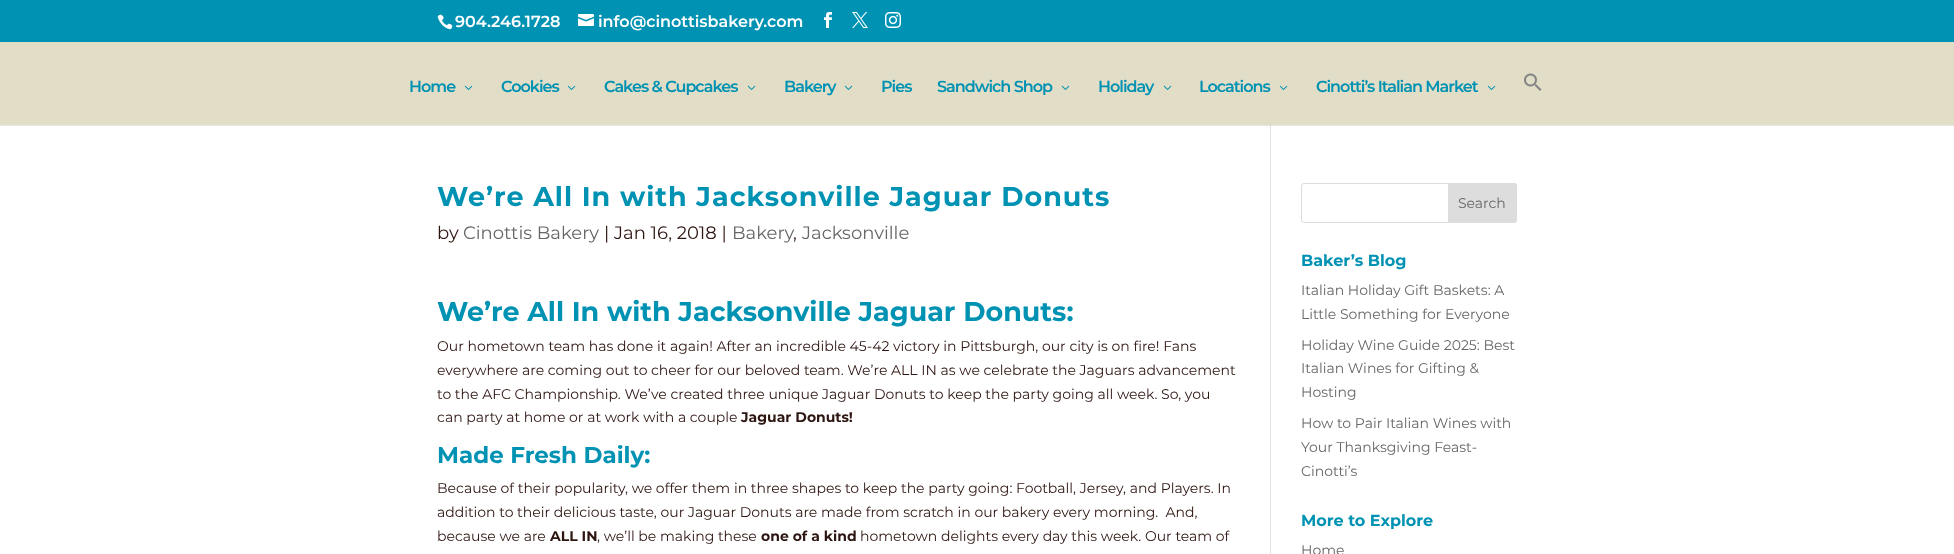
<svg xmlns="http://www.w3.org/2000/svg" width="1954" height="554">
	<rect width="100%" height="100%" fill="#0092B3" />
	<image x="437" y="14" width="16" height="16" href="assets/img1.png" />
	<text x="455" y="27" font-family="Montserrat" font-size="16" font-weight="600" fill="#FFFFFF">904.246.1728</text>
	<image x="578" y="14" width="16" height="12" href="assets/img2.png" />
	<text x="598" y="27" font-family="Montserrat" font-size="16" font-weight="600" fill="#FFFFFF">info@cinottisbakery.com</text>
	<image x="824" y="12" width="8" height="16" href="assets/img3.png" />
	<image x="852" y="12" width="16" height="16" href="assets/img4.png" />
	<image x="885" y="12" width="16" height="16" href="assets/img5.png" />
	<rect x="0" y="42" width="1954" height="83" fill="#E2DDC7" />
	<text x="409" y="92" font-family="Montserrat" font-size="16" font-weight="600" letter-spacing="-1" fill="#0092B3">Home</text>
	<image x="464" y="85" width="9" height="5" href="assets/img6.png" />
	<text x="501" y="92" font-family="Montserrat" font-size="16" font-weight="600" letter-spacing="-1" fill="#0092B3">Cookies</text>
	<image x="567" y="85" width="9" height="5" href="assets/img6.png" />
	<text x="604" y="92" font-family="Montserrat" font-size="16" font-weight="600" letter-spacing="-1" fill="#0092B3">Cakes &amp; Cupcakes</text>
	<image x="747" y="85" width="9" height="5" href="assets/img6.png" />
	<text x="784" y="92" font-family="Montserrat" font-size="16" font-weight="600" letter-spacing="-1" fill="#0092B3">Bakery</text>
	<image x="844" y="85" width="9" height="5" href="assets/img6.png" />
	<g font-family="Montserrat" font-size="16" font-weight="600" letter-spacing="-1" fill="#0092B3">
		<text x="881" y="92">Pies</text>
		<text x="937" y="92">Sandwich Shop</text>
	</g>
	<image x="1061" y="85" width="9" height="5" href="assets/img6.png" />
	<text x="1098" y="92" font-family="Montserrat" font-size="16" font-weight="600" letter-spacing="-1" fill="#0092B3">Holiday</text>
	<image x="1163" y="85" width="9" height="5" href="assets/img6.png" />
	<text x="1199" y="92" font-family="Montserrat" font-size="16" font-weight="600" letter-spacing="-1" fill="#0092B3">Locations</text>
	<image x="1279" y="85" width="9" height="5" href="assets/img6.png" />
	<text x="1316" y="92" font-family="Montserrat" font-size="16" font-weight="600" letter-spacing="-1" fill="#0092B3">Cinotti’s Italian Market</text>
	<image x="1487" y="85" width="9" height="5" href="assets/img6.png" />
	<image x="1524" y="73" width="18" height="18" href="assets/img7.png" />
	<rect x="0" y="126" width="1954" height="428" fill="#FFFFFF" />
	<rect x="0" y="125" width="1954" height="1" fill="#E6E6E6" />
	<rect x="1270" y="125" width="1" height="429" fill="#E2E2E2" />
	<rect x="1270" y="125" width="1" height="1" fill="#CBCBCB" />
	<text x="437" y="206" font-family="Montserrat" font-size="27" font-weight="700" letter-spacing="1" fill="#0092B3">We’re All In with Jacksonville Jaguar Donuts</text>
	<text x="437" y="239" font-family="Montserrat" font-size="18" fill="#2D1511">by</text>
	<text x="463" y="239" font-family="Montserrat" font-size="18" fill="#666666">Cinottis Bakery</text>
	<text x="604" y="239" font-family="Montserrat" font-size="18" fill="#2D1511">| Jan 16, 2018 |</text>
	<text x="732" y="239" font-family="Montserrat" font-size="18" fill="#666666">Bakery</text>
	<text x="793" y="239" font-family="Montserrat" font-size="18" fill="#2D1511">,</text>
	<text x="802" y="239" font-family="Montserrat" font-size="18" fill="#666666">Jacksonville</text>
	<text x="437" y="321" font-family="Montserrat" font-size="27" font-weight="700" fill="#0092B3">We’re All In with Jacksonville Jaguar Donuts:</text>
	<g font-family="Montserrat" font-size="14" fill="#2D1511">
		<text x="437" y="351">Our hometown team has done it again! After an incredible 45-42 victory in Pittsburgh, our city is on fire! Fans</text>
		<text x="437" y="375">everywhere are coming out to cheer for our beloved team. We’re ALL IN as we celebrate the Jaguars advancement</text>
		<text x="437" y="399">to the AFC Championship. We’ve created three unique Jaguar Donuts to keep the party going all week. So, you</text>
		<text x="437" y="422">can party at home or at work with a couple</text>
	</g>
	<text x="741" y="422" font-family="Montserrat" font-size="14" font-weight="700" fill="#2D1511">Jaguar Donuts!</text>
	<text x="437" y="463" font-family="Montserrat" font-size="23" font-weight="700" fill="#0092B3">Made Fresh Daily:</text>
	<g font-family="Montserrat" font-size="14" fill="#2D1511">
		<text x="437" y="493">Because of their popularity, we offer them in three shapes to keep the party going: Football, Jersey, and Players. In</text>
		<text x="437" y="517" xml:space="preserve">addition to their delicious taste, our Jaguar Donuts are made from scratch in our bakery every morning.  And,</text>
		<text x="437" y="541">because we are</text>
	</g>
	<text x="550" y="541" font-family="Montserrat" font-size="14" font-weight="700" fill="#2D1511">ALL IN</text>
	<text x="597" y="541" font-family="Montserrat" font-size="14" fill="#2D1511">, we’ll be making these</text>
	<text x="761" y="541" font-family="Montserrat" font-size="14" font-weight="700" fill="#2D1511">one of a kind</text>
	<text x="860" y="541" font-family="Montserrat" font-size="14" fill="#2D1511">hometown delights every day this week. Our team of</text>
	<rect x="1301.5" y="183.5" width="215" height="39" rx="2.5" fill="none" stroke="#DDDDDD" />
	<path d="M1448.5 183.5H1514C1515.5 183.5 1516.5 184.5 1516.5 186V220C1516.5 221.5 1515.5 222.5 1514 222.5H1448.5Z" fill="#DDDDDD" stroke="#DDDDDD" />
	<text x="1458" y="208" font-family="Montserrat" font-size="14" fill="#666666">Search</text>
	<text x="1301" y="266" font-family="Montserrat" font-size="16" font-weight="700" fill="#0092B3">Baker’s Blog</text>
	<g font-family="Montserrat" font-size="14" fill="#666666">
		<text x="1301" y="295">Italian Holiday Gift Baskets: A</text>
		<text x="1301" y="319">Little Something for Everyone</text>
		<text x="1301" y="350">Holiday Wine Guide 2025: Best</text>
		<text x="1301" y="373">Italian Wines for Gifting &amp;</text>
		<text x="1301" y="397">Hosting</text>
		<text x="1301" y="428">How to Pair Italian Wines with</text>
		<text x="1301" y="452">Your Thanksgiving Feast-</text>
		<text x="1301" y="476">Cinotti’s</text>
	</g>
	<text x="1301" y="526" font-family="Montserrat" font-size="16" font-weight="700" fill="#0092B3">More to Explore</text>
	<text x="1301" y="555" font-family="Montserrat" font-size="14" fill="#666666">Home</text>
</svg>
